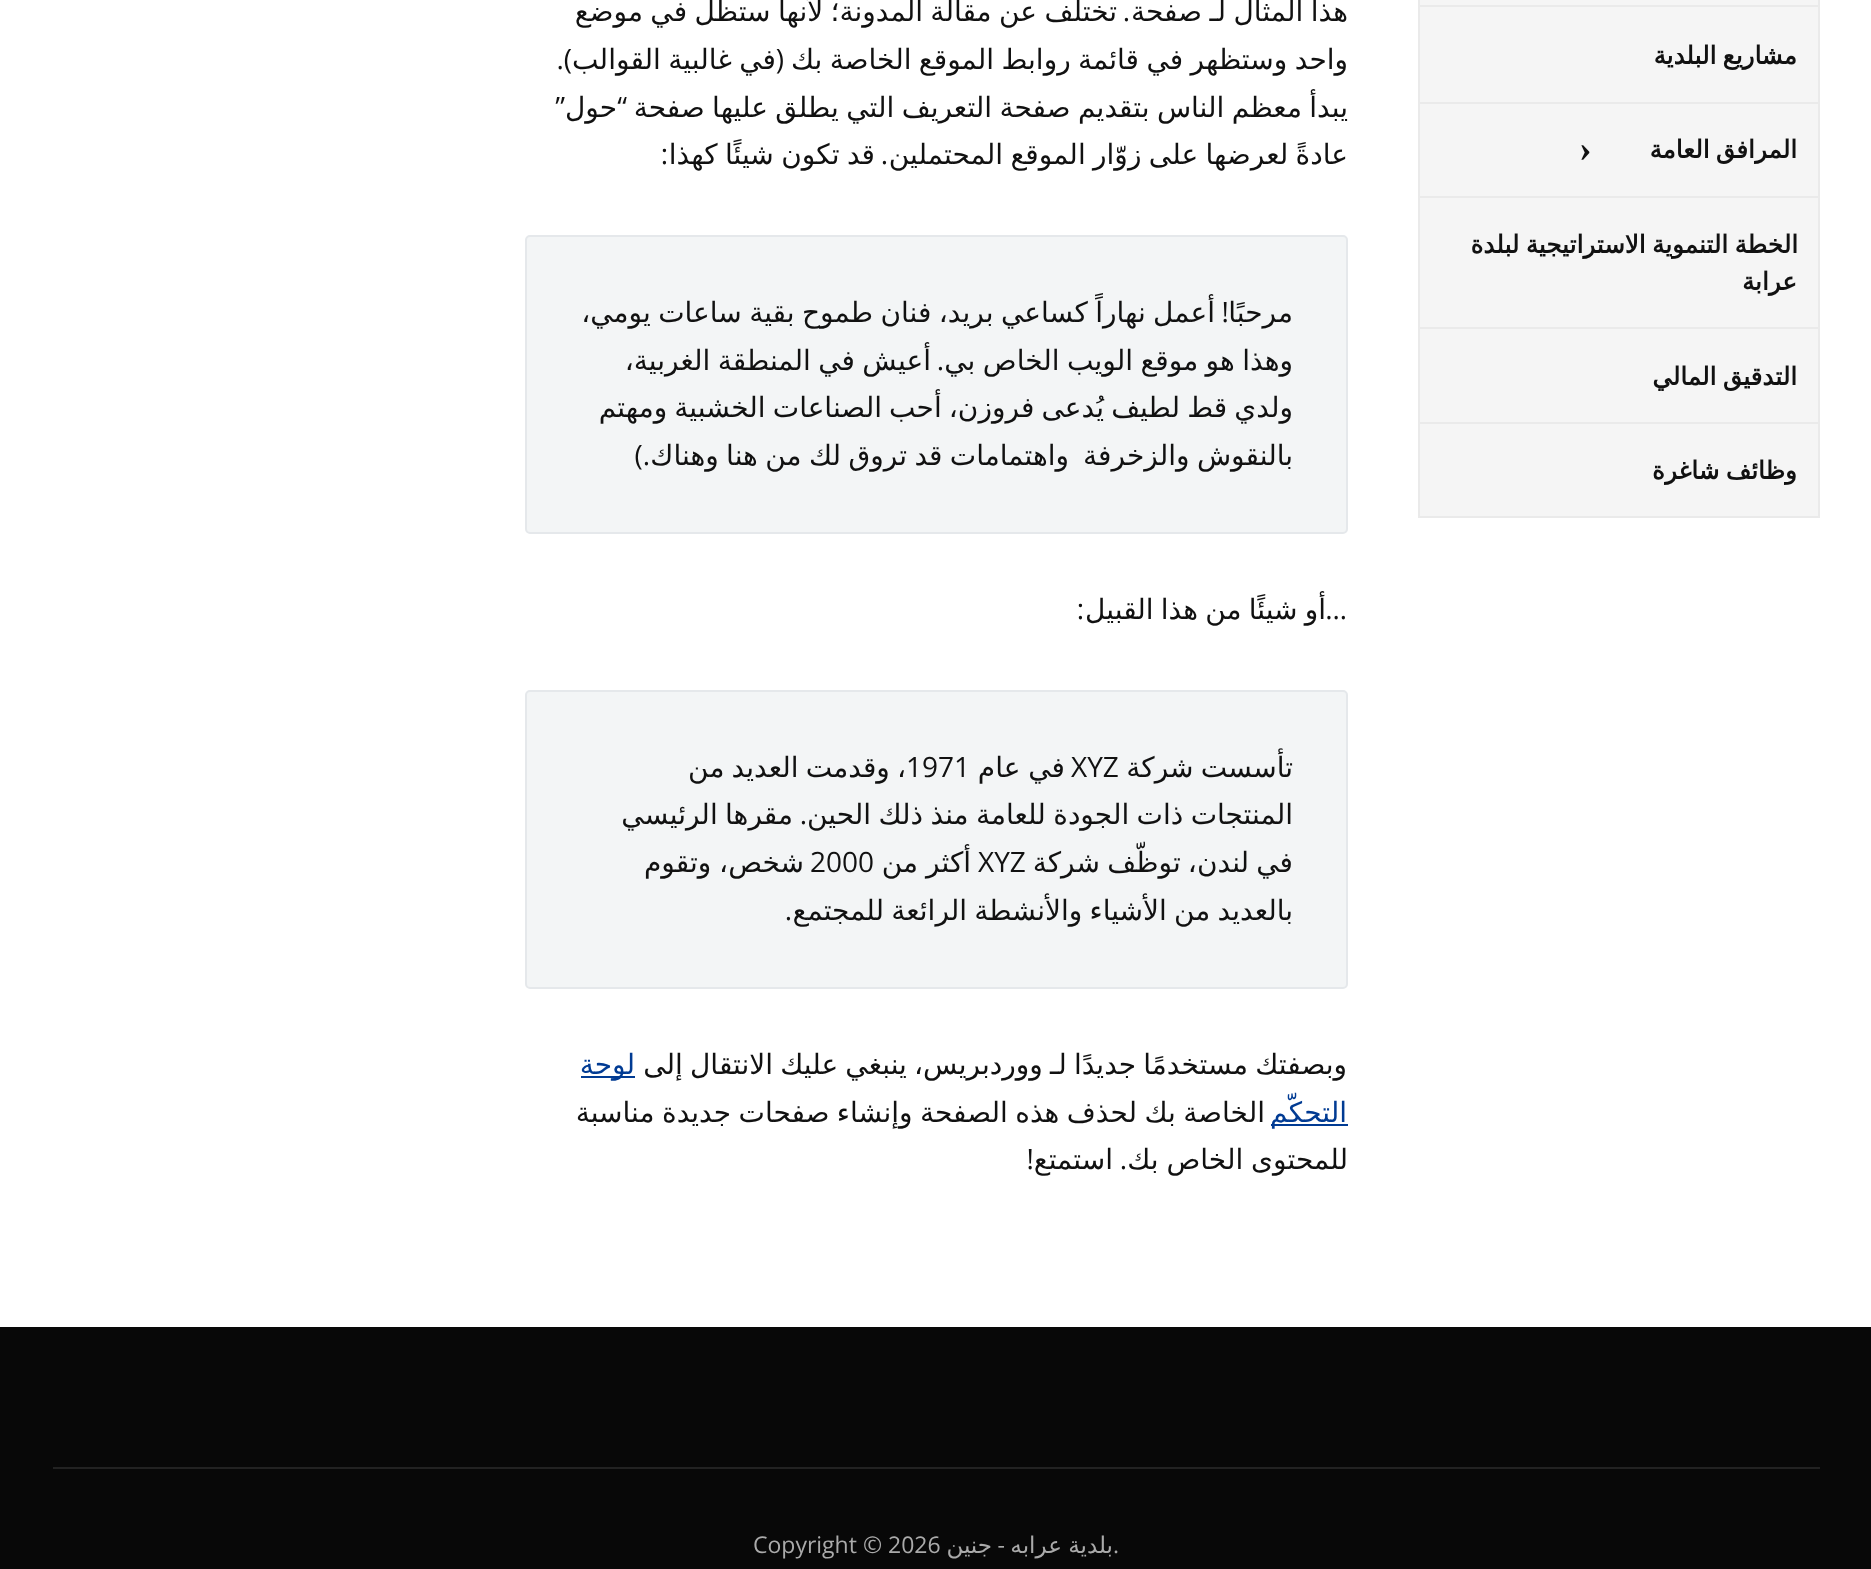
<svg xmlns="http://www.w3.org/2000/svg" width="1871" height="1569">
	<rect width="100%" height="100%" fill="#FFFFFF" />
	<rect x="1418" y="516" width="402" height="2" fill="#EAEAEA" />
	<rect x="1419" y="0" width="399" height="5" fill="#F5F5F5" />
	<rect x="1818" y="0" width="2" height="5" fill="#EAEAEA" />
	<rect x="1418" y="0" width="2" height="5" fill="#EAEAEA" />
	<rect x="1420" y="7" width="398" height="95" fill="#F5F5F5" />
	<rect x="1418" y="5" width="402" height="2" fill="#EAEAEA" />
	<rect x="1818" y="5" width="2" height="97" fill="#EAEAEA" />
	<rect x="1418" y="5" width="2" height="97" fill="#EAEAEA" />
	<text x="1797" y="64" word-spacing="-1.5" font-family="DejaVu Sans" font-size="24.6" font-weight="700" direction="rtl" fill="#111111">مشاريع البلدية</text>
	<rect x="1420" y="104" width="398" height="92" fill="#F5F5F5" />
	<rect x="1418" y="102" width="402" height="2" fill="#EAEAEA" />
	<rect x="1818" y="102" width="2" height="94" fill="#EAEAEA" />
	<rect x="1418" y="102" width="2" height="94" fill="#EAEAEA" />
	<text x="1797" y="158" word-spacing="-1.5" font-family="DejaVu Sans" font-size="24.6" font-weight="700" direction="rtl" fill="#111111">المرافق العامة</text>
	<text x="1579" y="161" font-family="Liberation Serif" font-size="38" font-weight="700" fill="#111111">›</text>
	<rect x="1420" y="198" width="398" height="129" fill="#F5F5F5" />
	<rect x="1418" y="196" width="402" height="2" fill="#EAEAEA" />
	<rect x="1818" y="196" width="2" height="131" fill="#EAEAEA" />
	<rect x="1418" y="196" width="2" height="131" fill="#EAEAEA" />
	<g font-family="DejaVu Sans" font-size="24.6" font-weight="700" direction="rtl" fill="#111111">
		<text x="1798" y="253" word-spacing="-1.5">الخطة التنموية الاستراتيجية لبلدة</text>
		<text x="1797" y="290">عرابة</text>
	</g>
	<rect x="1420" y="329" width="398" height="93" fill="#F5F5F5" />
	<rect x="1418" y="327" width="402" height="2" fill="#EAEAEA" />
	<rect x="1818" y="327" width="2" height="95" fill="#EAEAEA" />
	<rect x="1418" y="327" width="2" height="95" fill="#EAEAEA" />
	<text x="1797" y="385" word-spacing="-1.5" font-family="DejaVu Sans" font-size="24.6" font-weight="700" direction="rtl" fill="#111111">التدقيق المالي</text>
	<rect x="1420" y="424" width="398" height="92" fill="#F5F5F5" />
	<rect x="1418" y="422" width="402" height="2" fill="#EAEAEA" />
	<rect x="1818" y="422" width="2" height="94" fill="#EAEAEA" />
	<rect x="1418" y="422" width="2" height="94" fill="#EAEAEA" />
	<text x="1797" y="479" word-spacing="-1.5" font-family="DejaVu Sans" font-size="24.6" font-weight="700" direction="rtl" fill="#111111">وظائف شاغرة</text>
	<g font-family="DejaVu Sans" font-size="28" direction="rtl" fill="#111111">
		<text x="1348" y="21" word-spacing="-1.5">هذا المثال لـ صفحة</text>
		<text x="1117" y="21" word-spacing="-1.5">تختلف عن مقالة المدونة؛ لأنها ستظل في موضع</text>
	</g>
	<text x="1130" y="21" font-family="Open Sans" font-size="28" direction="rtl" fill="#111111">.</text>
	<g font-family="DejaVu Sans" font-size="28" direction="rtl" fill="#111111">
		<text x="1348" y="69" word-spacing="-1.5">واحد وستظهر في قائمة روابط الموقع الخاصة بك</text>
		<text x="776" y="69" word-spacing="-1.5">في غالبية القوالب</text>
	</g>
	<g font-family="Open Sans" font-size="28" direction="rtl" fill="#111111">
		<text x="784" y="69">(</text>
		<text x="572" y="69">).</text>
	</g>
	<text x="1348" y="117" word-spacing="-1.5" font-family="DejaVu Sans" font-size="28" direction="rtl" fill="#111111">يبدأ معظم الناس بتقديم صفحة التعريف التي يطلق عليها صفحة</text>
	<text x="627" y="117" font-family="Open Sans" font-size="28" direction="rtl" fill="#111111">“</text>
	<text x="617" y="117" font-family="DejaVu Sans" font-size="28" direction="rtl" fill="#111111">حول</text>
	<text x="565" y="117" font-family="Open Sans" font-size="28" direction="rtl" fill="#111111">”</text>
	<text x="1348" y="164" word-spacing="-1.5" font-family="DejaVu Sans" font-size="28" direction="rtl" fill="#111111">عادةً لعرضها على زوّار الموقع المحتملين</text>
	<text x="888" y="164" font-family="Open Sans" font-size="28" direction="rtl" fill="#111111">.</text>
	<text x="875" y="164" word-spacing="-1.5" font-family="DejaVu Sans" font-size="28" direction="rtl" fill="#111111">قد تكون شيئًا كهذا</text>
	<text x="668" y="164" font-family="Open Sans" font-size="28" direction="rtl" fill="#111111">:</text>
	<rect x="526" y="236" width="821" height="297" rx="4" fill="#F3F5F6" stroke="#E5E8EB" stroke-width="2" />
	<g font-family="DejaVu Sans" font-size="28" direction="rtl" fill="#111111">
		<text x="1293" y="322">مرحبًا</text>
		<text x="1215" y="322" word-spacing="-1.5">أعمل نهاراً كساعي بريد، فنان طموح بقية ساعات يومي،</text>
	</g>
	<text x="1229" y="322" font-family="Open Sans" font-size="28" direction="rtl" fill="#111111">!</text>
	<text x="1293" y="370" word-spacing="-1.5" font-family="DejaVu Sans" font-size="28" direction="rtl" fill="#111111">وهذا هو موقع الويب الخاص بي</text>
	<text x="944" y="370" font-family="Open Sans" font-size="28" direction="rtl" fill="#111111">.</text>
	<g font-family="DejaVu Sans" font-size="28" direction="rtl" fill="#111111">
		<text x="931" y="370" word-spacing="-1.5">أعيش في المنطقة الغربية،</text>
		<text x="1293" y="417" word-spacing="-1.75">ولدي قط لطيف يُدعى فروزن، أحب الصناعات الخشبية ومهتم</text>
		<text x="1293" y="465" word-spacing="-1.5">بالنقوش والزخرفة</text>
		<text x="1069" y="465" word-spacing="-1.5">واهتمامات قد تروق لك من هنا وهناك</text>
	</g>
	<text x="650" y="465" font-family="Open Sans" font-size="28" direction="rtl" fill="#111111">.)</text>
	<text x="1326" y="619" word-spacing="-1.75" font-family="DejaVu Sans" font-size="28" direction="rtl" fill="#111111">أو شيئًا من هذا القبيل</text>
	<g font-family="Open Sans" font-size="28" direction="rtl" fill="#111111">
		<text x="1347" y="619">…</text>
		<text x="1084" y="619">:</text>
	</g>
	<rect x="526" y="691" width="821" height="297" rx="4" fill="#F3F5F6" stroke="#E5E8EB" stroke-width="2" />
	<text x="1293" y="777" word-spacing="-1.75" font-family="DejaVu Sans" font-size="28" direction="rtl" fill="#111111">تأسست شركة</text>
	<text x="1071" y="777" font-family="Open Sans" font-size="28" fill="#111111">XYZ</text>
	<g font-family="DejaVu Sans" font-size="28" direction="rtl" fill="#111111">
		<text x="1065" y="777" word-spacing="-1">في عام</text>
		<text x="906" y="777" word-spacing="-1.75">، وقدمت العديد من</text>
	</g>
	<text x="906" y="777" font-family="Open Sans" font-size="28" fill="#111111">1971</text>
	<text x="1293" y="824" word-spacing="-1.5" font-family="DejaVu Sans" font-size="28" direction="rtl" fill="#111111">المنتجات ذات الجودة للعامة منذ ذلك الحين</text>
	<text x="807" y="824" font-family="Open Sans" font-size="28" direction="rtl" fill="#111111">.</text>
	<g font-family="DejaVu Sans" font-size="28" direction="rtl" fill="#111111">
		<text x="793" y="824" word-spacing="-1.5">مقرها الرئيسي</text>
		<text x="1293" y="872" word-spacing="-1.75">في لندن، توظّف شركة</text>
	</g>
	<text x="978" y="872" font-family="Open Sans" font-size="28" fill="#111111">XYZ</text>
	<text x="971" y="872" word-spacing="-1" font-family="DejaVu Sans" font-size="28" direction="rtl" fill="#111111">أكثر من</text>
	<text x="810" y="872" font-family="Open Sans" font-size="28" fill="#111111">2000</text>
	<g font-family="DejaVu Sans" font-size="28" direction="rtl" fill="#111111">
		<text x="804" y="872" word-spacing="-1">شخص، وتقوم</text>
		<text x="1293" y="920" word-spacing="-1.75">بالعديد من الأشياء والأنشطة الرائعة للمجتمع</text>
	</g>
	<text x="792" y="920" font-family="Open Sans" font-size="28" direction="rtl" fill="#111111">.</text>
	<text x="1347" y="1074" word-spacing="-1.75" font-family="DejaVu Sans" font-size="28" direction="rtl" fill="#111111">وبصفتك مستخدمًا جديدًا لـ ووردبريس، ينبغي عليك الانتقال إلى</text>
	<rect x="581" y="1076" width="54" height="2" fill="#013B93" />
	<text x="635" y="1074" font-family="DejaVu Sans" font-size="28" direction="rtl" fill="#013B93">لوحة</text>
	<rect x="1271" y="1124" width="77" height="2" fill="#013B93" />
	<text x="1347" y="1122" font-family="DejaVu Sans" font-size="28" direction="rtl" fill="#013B93">التحكّم</text>
	<g font-family="DejaVu Sans" font-size="28" direction="rtl" fill="#111111">
		<text x="1265" y="1122" word-spacing="-1.5">الخاصة بك لحذف هذه الصفحة وإنشاء صفحات جديدة مناسبة</text>
		<text x="1348" y="1169" word-spacing="-1">للمحتوى الخاص بك</text>
	</g>
	<text x="1127" y="1169" font-family="Open Sans" font-size="28" direction="rtl" fill="#111111">.</text>
	<text x="1113" y="1169" font-family="DejaVu Sans" font-size="28" direction="rtl" fill="#111111">استمتع</text>
	<text x="1034" y="1169" font-family="Open Sans" font-size="28" direction="rtl" fill="#111111">!</text>
	<rect x="0" y="1327" width="1871" height="242" fill="#080808" />
	<rect x="53" y="1467" width="1767" height="2" fill="#222222" />
	<text x="1113" y="1553" word-spacing="-1" font-family="DejaVu Sans" font-size="23" direction="rtl" fill="#AAAAAA">بلدية عرابه</text>
	<text x="1005" y="1553" font-family="Open Sans" font-size="23" direction="rtl" fill="#AAAAAA">-</text>
	<text x="992" y="1553" font-family="DejaVu Sans" font-size="23" direction="rtl" fill="#AAAAAA">جنين</text>
	<g font-family="Open Sans" font-size="23" fill="#AAAAAA">
		<text x="753" y="1553">Copyright © 2026</text>
		<text x="1113" y="1553">.</text>
	</g>
</svg>
